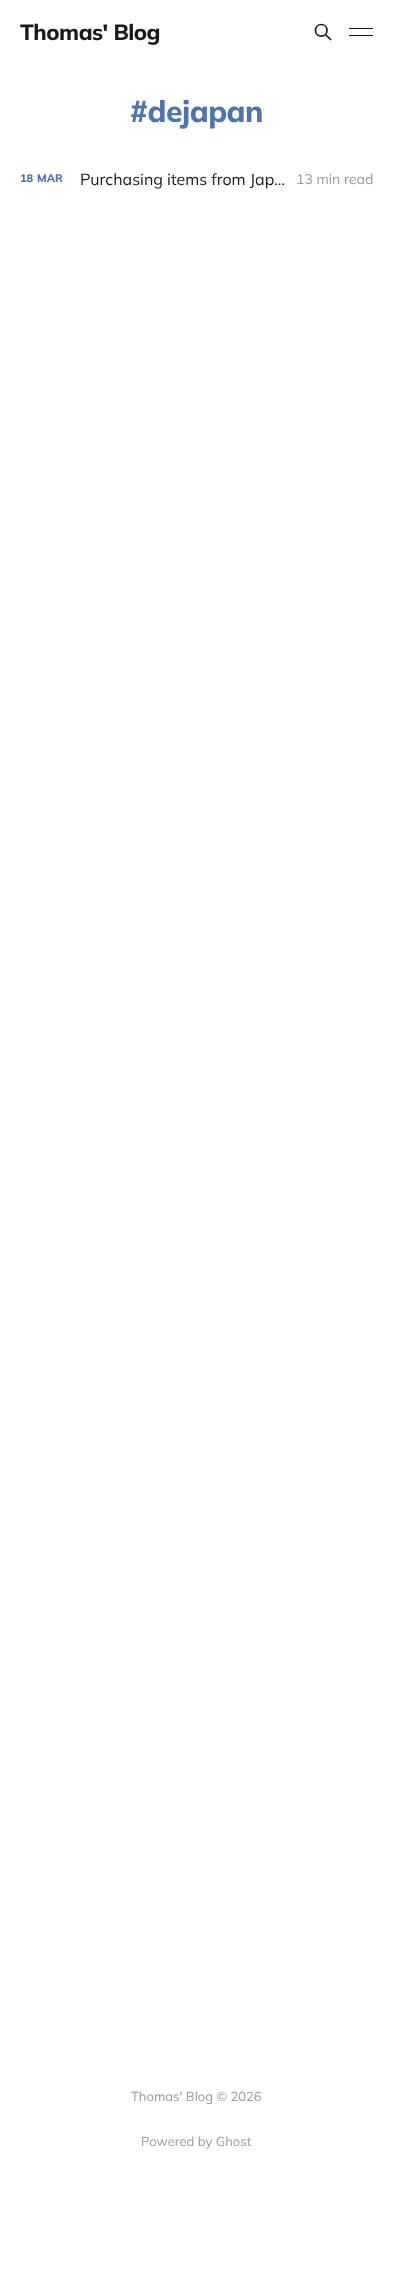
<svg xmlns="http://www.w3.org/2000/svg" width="393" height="2272">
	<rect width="100%" height="100%" fill="#FFFFFF" />
	<text x="20" y="40" font-family="Mulish" font-size="22" font-weight="200" letter-spacing="-0.5" fill="#1A1A1A">Thomas' Blog</text>
	<path d="M330.5 39.5L325.5 34.5M327 30.5C327 38 315.5 38 315.5 30.5C315.5 22.5 327 22.5 327 30.5Z" fill="none" stroke="#1A1A1A" stroke-width="1.7" stroke-linecap="round" stroke-linejoin="round" />
	<rect x="349" y="28" width="24" height="1" fill="#15171A" />
	<rect x="349" y="35" width="24" height="1" fill="#15171A" />
	<text x="130" y="122" font-family="Mulish" font-size="30" font-weight="200" letter-spacing="-0.5" fill="#4B73B5">#dejapan</text>
	<g font-family="Mulish" font-size="11" font-weight="200" fill="#4B73B5">
		<text x="20" y="182">18</text>
		<text x="37" y="182">MAR</text>
	</g>
	<text x="80" y="185" font-family="'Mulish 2'" font-size="16" font-weight="200" fill="#1A1A1A">Purchasing items from Jap…</text>
	<text x="296" y="184" font-family="'Mulish 2'" font-size="14" font-weight="200" fill="#999999">13 min read</text>
	<g font-family="'Mulish 2'" font-size="13" font-weight="200" fill="#999999">
		<text x="131" y="2101">Thomas' Blog © 2026</text>
		<text x="141" y="2146">Powered by Ghost</text>
	</g>
</svg>
